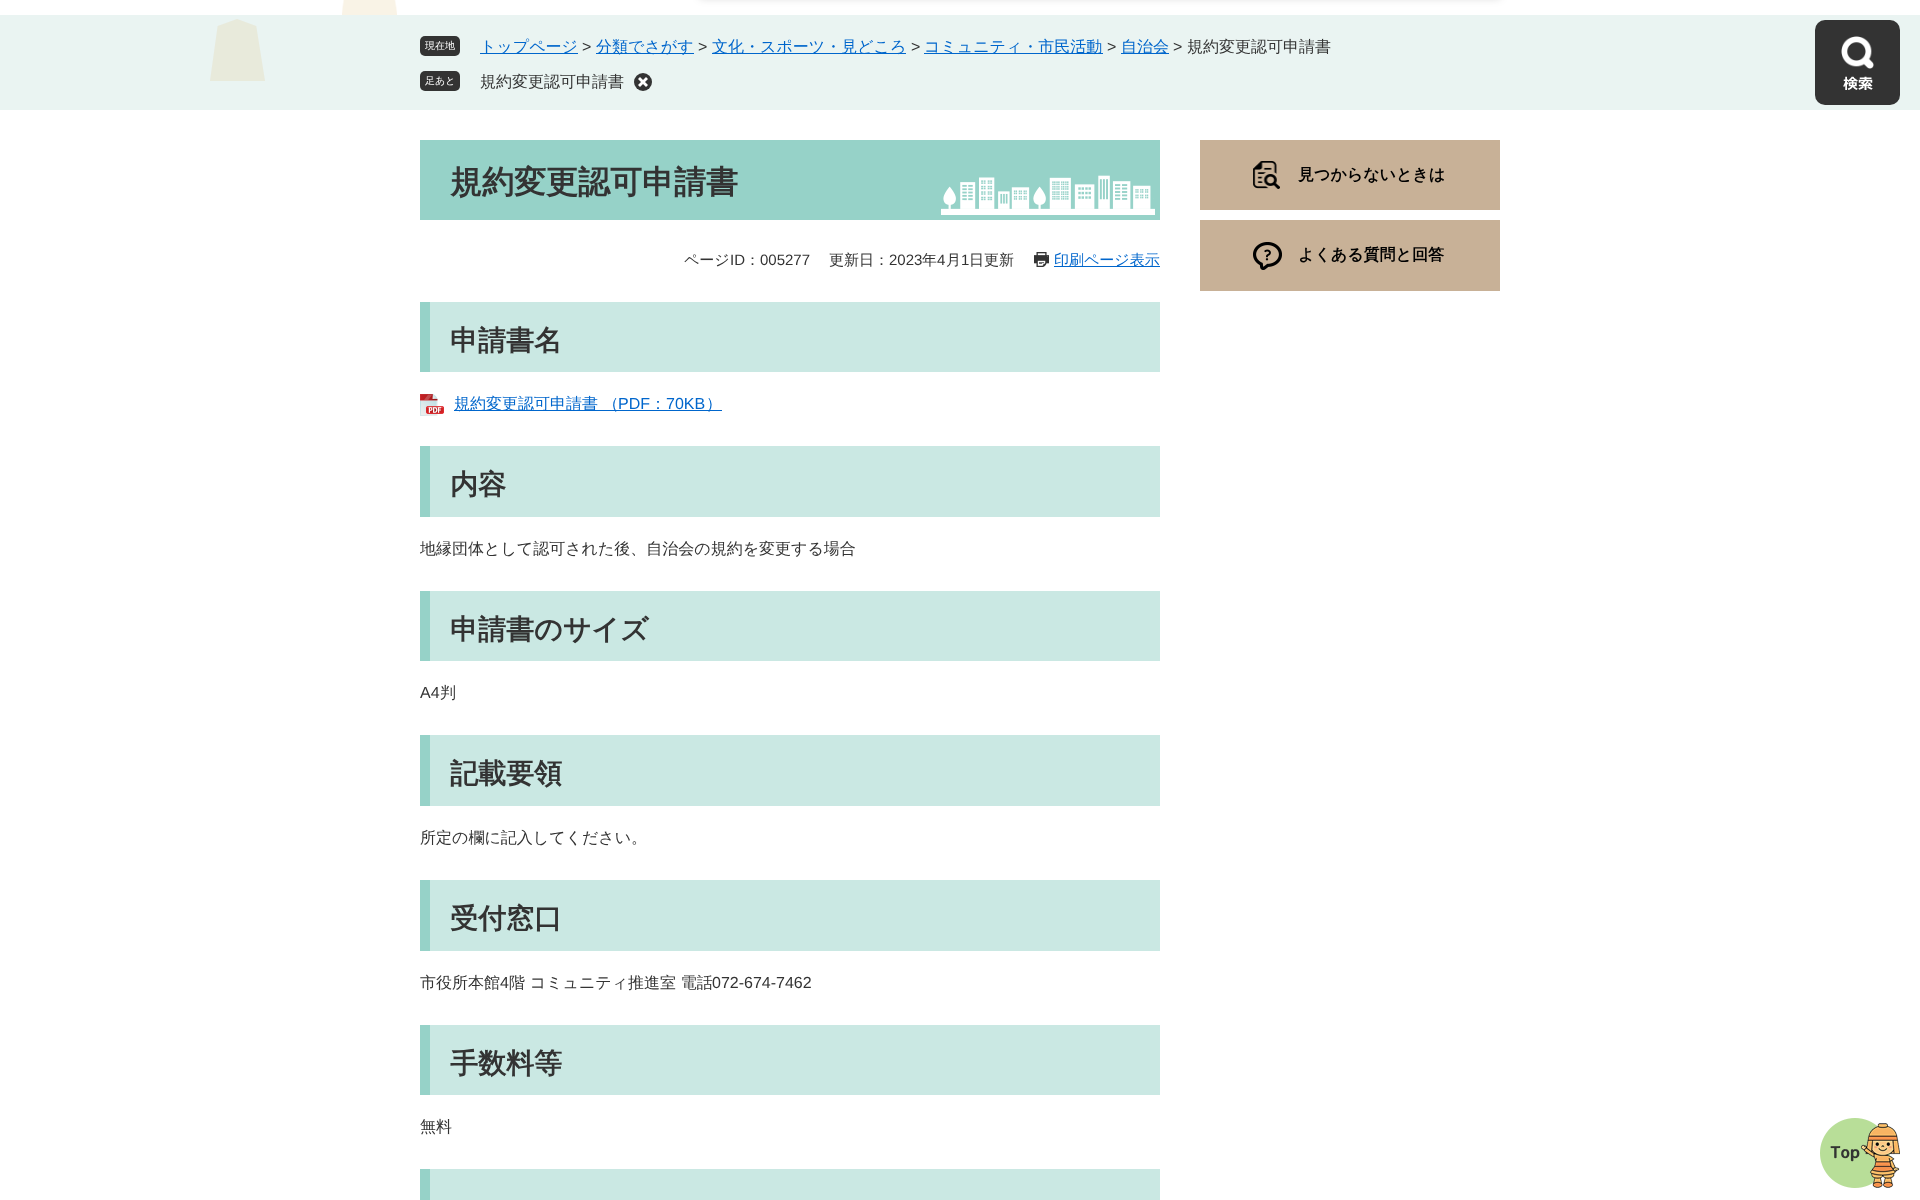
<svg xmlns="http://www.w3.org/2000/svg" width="1920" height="1200">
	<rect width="100%" height="100%" fill="#FFFFFF" />
	<rect x="0" y="15" width="1920" height="95" fill="#EAF4F2" />
	<image x="210" y="0" width="187" height="81" href="assets/img1.png" />
	<rect x="700" y="-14" width="800" height="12" fill="#000000" fill-opacity="0.17" filter="blur(4.5px)" />
	<rect x="1815" y="20" width="85" height="85" rx="10" fill="#333333" />
	<image x="1843" y="76" width="30" height="14" href="assets/img2.png" />
	<image x="1841" y="36" width="33" height="33" href="assets/img3.png" />
	<rect x="420" y="36" width="40" height="20" rx="5" fill="#333333" />
	<text x="425" y="49" font-family="WenQuanYi Zen Hei" font-size="10" font-weight="500" fill="#FFFFFF">現在地</text>
	<rect x="480" y="53" width="98" height="1" fill="#0066CC" />
	<text x="480" y="52" font-family="WenQuanYi Zen Hei" font-size="16" font-weight="500" fill="#0066CC">トップページ</text>
	<text x="582" y="52" font-family="Liberation Sans" font-size="16" fill="#333333">&gt;</text>
	<rect x="596" y="53" width="98" height="1" fill="#0066CC" />
	<text x="596" y="52" font-family="WenQuanYi Zen Hei" font-size="16" font-weight="500" fill="#0066CC">分類でさがす</text>
	<text x="698" y="52" font-family="Liberation Sans" font-size="16" fill="#333333">&gt;</text>
	<rect x="712" y="53" width="194" height="1" fill="#0066CC" />
	<text x="712" y="52" font-family="WenQuanYi Zen Hei" font-size="16" font-weight="500" fill="#0066CC">文化・スポーツ・見どころ</text>
	<text x="911" y="52" font-family="Liberation Sans" font-size="16" fill="#333333">&gt;</text>
	<rect x="924" y="53" width="179" height="1" fill="#0066CC" />
	<text x="924" y="52" font-family="WenQuanYi Zen Hei" font-size="16" font-weight="500" fill="#0066CC">コミュニティ・市民活動</text>
	<text x="1107" y="52" font-family="Liberation Sans" font-size="16" fill="#333333">&gt;</text>
	<rect x="1121" y="53" width="48" height="1" fill="#0066CC" />
	<text x="1121" y="52" font-family="WenQuanYi Zen Hei" font-size="16" font-weight="500" fill="#0066CC">自治会</text>
	<text x="1173" y="52" font-family="Liberation Sans" font-size="16" fill="#333333">&gt;</text>
	<text x="1187" y="52" font-family="WenQuanYi Zen Hei" font-size="16" font-weight="500" fill="#333333">規約変更認可申請書</text>
	<rect x="420" y="71" width="40" height="20" rx="5" fill="#333333" />
	<text x="425" y="84" font-family="WenQuanYi Zen Hei" font-size="10" font-weight="500" fill="#FFFFFF">足あと</text>
	<text x="480" y="87" font-family="WenQuanYi Zen Hei" font-size="16" font-weight="500" fill="#333333">規約変更認可申請書</text>
	<circle cx="643" cy="82" r="9" fill="#333333" />
	<image x="638" y="77" width="10" height="10" href="assets/img4.png" />
	<rect x="420" y="140" width="740" height="80" fill="#96D2C8" />
	<image x="941" y="175" width="214" height="40" href="assets/img5.png" />
	<text x="450" y="193" font-family="WenQuanYi Zen Hei" font-size="32" font-weight="700" fill="#333333">規約変更認可申請書</text>
	<text x="684" y="265" font-family="WenQuanYi Zen Hei" font-size="15" font-weight="500" fill="#333333">ページ</text>
	<text x="730" y="265" font-family="Liberation Sans" font-size="15" fill="#333333">ID</text>
	<text x="745" y="265" font-family="WenQuanYi Zen Hei" font-size="15" font-weight="500" fill="#333333">：</text>
	<text x="760" y="265" font-family="Liberation Sans" font-size="15" fill="#333333">005277</text>
	<text x="829" y="265" font-family="WenQuanYi Zen Hei" font-size="15" font-weight="500" fill="#333333">更新日：</text>
	<text x="889" y="265" font-family="Liberation Sans" font-size="15" fill="#333333">2023</text>
	<text x="922" y="265" font-family="WenQuanYi Zen Hei" font-size="15" font-weight="500" fill="#333333">年</text>
	<text x="937" y="265" font-family="Liberation Sans" font-size="15" fill="#333333">4</text>
	<text x="946" y="265" font-family="WenQuanYi Zen Hei" font-size="15" font-weight="500" fill="#333333">月</text>
	<text x="961" y="265" font-family="Liberation Sans" font-size="15" fill="#333333">1</text>
	<text x="969" y="265" font-family="WenQuanYi Zen Hei" font-size="15" font-weight="500" fill="#333333">日更新</text>
	<image x="1034" y="252" width="15" height="15" href="assets/img6.png" />
	<rect x="1054" y="266" width="106" height="1" fill="#0066CC" />
	<text x="1054" y="265" font-family="WenQuanYi Zen Hei" font-size="15" font-weight="500" fill="#0066CC">印刷ページ表示</text>
	<rect x="430" y="302" width="730" height="70" fill="#CAE8E3" />
	<rect x="420" y="302" width="10" height="70" fill="#96D2C8" />
	<text x="450" y="350" font-family="WenQuanYi Zen Hei" font-size="28" font-weight="700" fill="#333333">申請書名</text>
	<image x="420" y="394" width="24" height="22" href="assets/img7.png" />
	<rect x="454" y="410" width="268" height="1" fill="#0066CC" />
	<text x="454" y="409" font-family="WenQuanYi Zen Hei" font-size="16" font-weight="500" fill="#0066CC">規約変更認可申請書 （</text>
	<text x="618" y="409" font-family="Liberation Sans" font-size="16" fill="#0066CC">PDF</text>
	<text x="650" y="409" font-family="WenQuanYi Zen Hei" font-size="16" font-weight="500" fill="#0066CC">：</text>
	<text x="666" y="409" font-family="Liberation Sans" font-size="16" fill="#0066CC">70KB</text>
	<text x="706" y="409" font-family="WenQuanYi Zen Hei" font-size="16" font-weight="500" fill="#0066CC">）</text>
	<rect x="430" y="446" width="730" height="71" fill="#CAE8E3" />
	<rect x="420" y="446" width="10" height="71" fill="#96D2C8" />
	<text x="450" y="494" font-family="WenQuanYi Zen Hei" font-size="28" font-weight="700" fill="#333333">内容</text>
	<text x="420" y="554" font-family="WenQuanYi Zen Hei" font-size="16" font-weight="500" fill="#333333">地縁団体として認可された後、自治会の規約を変更する場合</text>
	<rect x="430" y="591" width="730" height="70" fill="#CAE8E3" />
	<rect x="420" y="591" width="10" height="70" fill="#96D2C8" />
	<text x="450" y="639" font-family="WenQuanYi Zen Hei" font-size="28" font-weight="700" fill="#333333">申請書のサイズ</text>
	<text x="420" y="698" font-family="Liberation Sans" font-size="16" fill="#333333">A4</text>
	<text x="440" y="698" font-family="WenQuanYi Zen Hei" font-size="16" font-weight="500" fill="#333333">判</text>
	<rect x="430" y="735" width="730" height="71" fill="#CAE8E3" />
	<rect x="420" y="735" width="10" height="71" fill="#96D2C8" />
	<text x="450" y="783" font-family="WenQuanYi Zen Hei" font-size="28" font-weight="700" fill="#333333">記載要領</text>
	<text x="420" y="843" font-family="WenQuanYi Zen Hei" font-size="16" font-weight="500" fill="#333333">所定の欄に記入してください。</text>
	<rect x="430" y="880" width="730" height="71" fill="#CAE8E3" />
	<rect x="420" y="880" width="10" height="71" fill="#96D2C8" />
	<text x="450" y="928" font-family="WenQuanYi Zen Hei" font-size="28" font-weight="700" fill="#333333">受付窓口</text>
	<text x="420" y="988" font-family="WenQuanYi Zen Hei" font-size="16" font-weight="500" fill="#333333">市役所本館</text>
	<text x="500" y="988" font-family="Liberation Sans" font-size="16" fill="#333333">4</text>
	<text x="509" y="988" font-family="WenQuanYi Zen Hei" font-size="16" font-weight="500" fill="#333333">階 コミュニティ推進室 電話</text>
	<text x="712" y="988" font-family="Liberation Sans" font-size="16" fill="#333333">072-674-7462</text>
	<rect x="430" y="1025" width="730" height="70" fill="#CAE8E3" />
	<rect x="420" y="1025" width="10" height="70" fill="#96D2C8" />
	<text x="450" y="1073" font-family="WenQuanYi Zen Hei" font-size="28" font-weight="700" fill="#333333">手数料等</text>
	<text x="420" y="1132" font-family="WenQuanYi Zen Hei" font-size="16" font-weight="500" fill="#333333">無料</text>
	<rect x="430" y="1169" width="730" height="31" fill="#CAE8E3" />
	<rect x="420" y="1169" width="10" height="31" fill="#96D2C8" />
	<rect x="1200" y="140" width="300" height="70" fill="#C8B197" />
	<image x="1253" y="161" width="27" height="28" href="assets/img8.png" />
	<text x="1298" y="180" font-family="WenQuanYi Zen Hei" font-size="16" font-weight="700" fill="#000000">見つからないときは</text>
	<rect x="1200" y="220" width="300" height="71" fill="#C8B197" />
	<image x="1253" y="242" width="29" height="28" href="assets/img9.png" />
	<text x="1298" y="260" font-family="WenQuanYi Zen Hei" font-size="16" font-weight="700" fill="#000000">よくある質問と回答</text>
	<image x="1820" y="1118" width="80" height="70" href="assets/img10.png" />
</svg>
